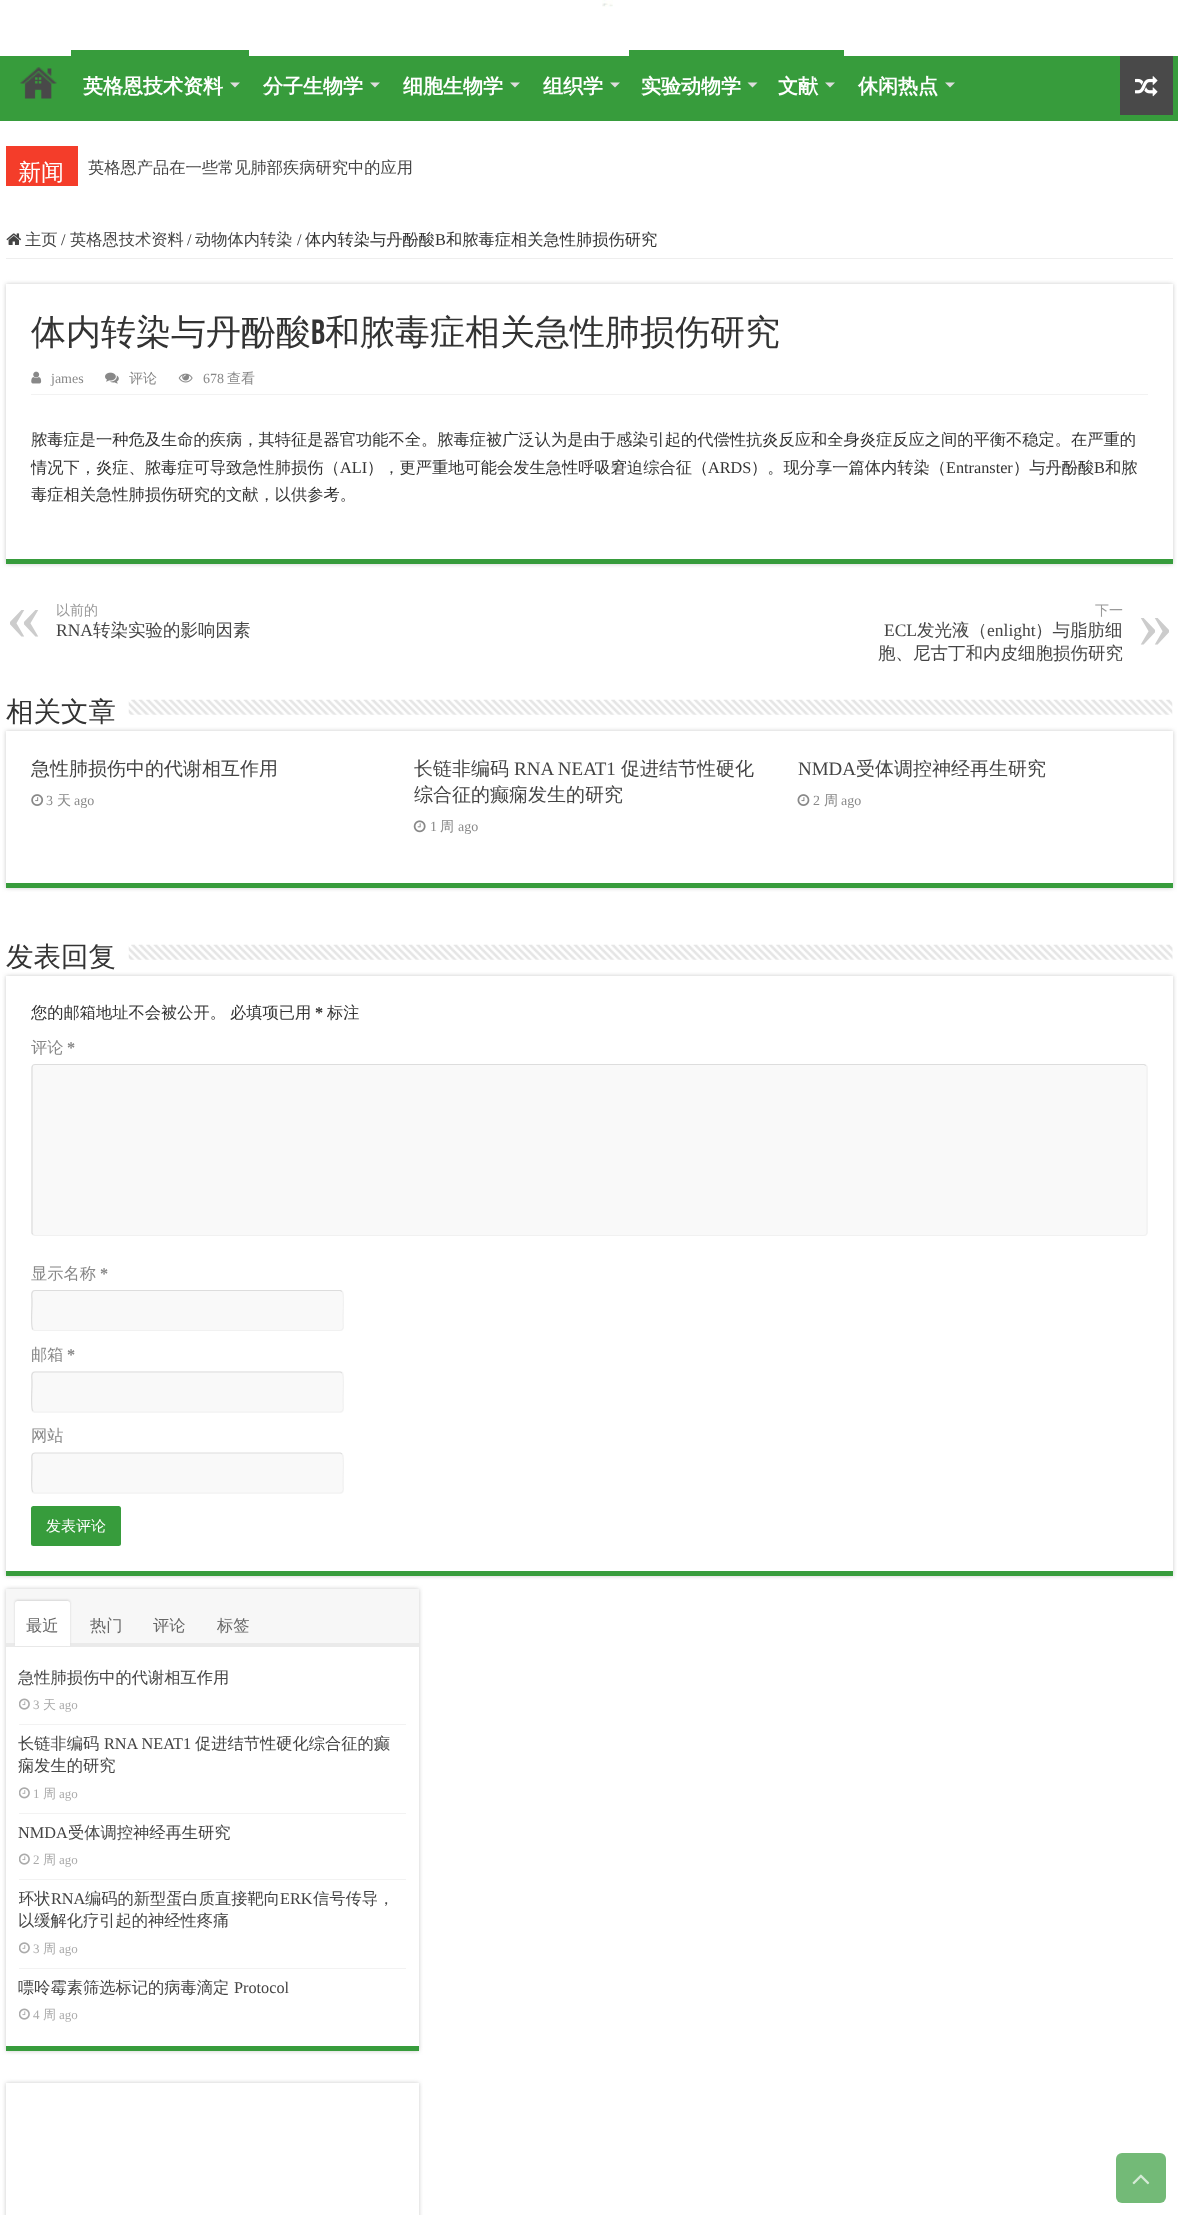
<svg xmlns="http://www.w3.org/2000/svg" width="1178" height="2215">
	<defs>
		<clipPath id="clip1"><rect x="19" y="1880" width="387" height="88" /></clipPath>
	</defs>
	<rect width="100%" height="100%" fill="#FFFFFF" />
	<image x="602" y="0" width="11" height="7" href="assets/img1.png" />
	<rect x="0" y="56" width="1178" height="65" fill="#379C3C" />
	<image x="20" y="67" width="37" height="32" href="assets/img2.png" />
	<rect x="71" y="50" width="178" height="6" fill="#379C3C" />
	<text x="83" y="93" font-family="WenQuanYi Zen Hei" font-size="20" font-weight="700" fill="#FFFFFF">英格恩技术资料</text>
	<path d="M230 82.5H240L235 87.5Z" fill="#DDDDDD" />
	<text x="263" y="93" font-family="WenQuanYi Zen Hei" font-size="20" font-weight="700" fill="#FFFFFF">分子生物学</text>
	<path d="M370 82.5H380L375 87.5Z" fill="#DDDDDD" />
	<text x="403" y="93" font-family="WenQuanYi Zen Hei" font-size="20" font-weight="700" fill="#FFFFFF">细胞生物学</text>
	<path d="M510 82.5H520L515 87.5Z" fill="#DDDDDD" />
	<text x="543" y="93" font-family="WenQuanYi Zen Hei" font-size="20" font-weight="700" fill="#FFFFFF">组织学</text>
	<path d="M610 82.5H620L615 87.5Z" fill="#DDDDDD" />
	<rect x="629" y="50" width="215" height="6" fill="#379C3C" />
	<text x="641" y="93" font-family="WenQuanYi Zen Hei" font-size="20" font-weight="700" fill="#FFFFFF">实验动物学</text>
	<path d="M747.5 82.5H757.5L752.5 87.5Z" fill="#DDDDDD" />
	<text x="778" y="93" font-family="WenQuanYi Zen Hei" font-size="20" font-weight="700" fill="#FFFFFF">文献</text>
	<path d="M825 82.5H835L830 87.5Z" fill="#DDDDDD" />
	<text x="858" y="93" font-family="WenQuanYi Zen Hei" font-size="20" font-weight="700" fill="#FFFFFF">休闲热点</text>
	<path d="M945 82.5H955L950 87.5Z" fill="#DDDDDD" />
	<rect x="1120" y="56" width="53" height="59" fill="#494949" />
	<image x="1135" y="76" width="23" height="21" href="assets/img3.png" />
	<rect x="6" y="146" width="1167" height="40" fill="#CACACA" filter="blur(0.5px)" />
	<rect x="78" y="146" width="1095" height="40" fill="#FFFFFF" />
	<rect x="6" y="146" width="72" height="40" fill="#F43D2A" />
	<text x="18" y="180" font-family="WenQuanYi Zen Hei" font-size="23" font-weight="500" fill="#FFFFFF">新闻</text>
	<text x="88" y="173" font-family="WenQuanYi Zen Hei" font-size="16.25" font-weight="500" fill="#444444">英格恩产品在一些常见肺部疾病研究中的应用</text>
	<rect x="6" y="258" width="1167" height="1" fill="#EEEEEE" />
	<image x="6" y="233" width="16" height="12" href="assets/img4.png" />
	<text x="25" y="245" font-family="WenQuanYi Zen Hei" font-size="16.25" font-weight="500" fill="#444444">主页</text>
	<text x="61" y="245" font-family="Liberation Serif" font-size="16.25" fill="#333333">/</text>
	<text x="70" y="245" font-family="WenQuanYi Zen Hei" font-size="16.25" font-weight="500" fill="#444444">英格恩技术资料</text>
	<text x="187" y="245" font-family="Liberation Serif" font-size="16.25" fill="#333333">/</text>
	<text x="195" y="245" font-family="WenQuanYi Zen Hei" font-size="16.25" font-weight="500" fill="#444444">动物体内转染</text>
	<text x="297" y="245" font-family="Liberation Serif" font-size="16.25" fill="#333333">/</text>
	<text x="305" y="245" font-family="WenQuanYi Zen Hei" font-size="16.25" font-weight="500" fill="#333333">体内转染与丹酚酸</text>
	<text x="435" y="245" font-family="Liberation Serif" font-size="16.25" fill="#333333">B</text>
	<text x="446" y="245" font-family="WenQuanYi Zen Hei" font-size="16.25" font-weight="500" fill="#333333">和脓毒症相关急性肺损伤研究</text>
	<rect x="6" y="284" width="1167" height="280" fill="#CACACA" filter="blur(2px)" />
	<rect x="6" y="284" width="1167" height="275" fill="#FFFFFF" />
	<rect x="6" y="559" width="1167" height="5" fill="#379C3C" />
	<text x="31" y="344" font-family="WenQuanYi Zen Hei" font-size="35" font-weight="500" fill="#333333">体内转染与丹酚酸</text>
	<text x="311" y="344" font-family="Bebas Neue" font-size="35" font-weight="700" fill="#333333">B</text>
	<text x="325" y="344" font-family="WenQuanYi Zen Hei" font-size="35" font-weight="500" fill="#333333">和脓毒症相关急性肺损伤研究</text>
	<rect x="31" y="394" width="1117" height="1" fill="#F2F2F2" />
	<image x="31" y="371" width="11" height="13" href="assets/img5.png" />
	<text x="51" y="383" font-family="Liberation Serif" font-size="14" fill="#888888">james</text>
	<image x="105" y="372" width="14" height="12" href="assets/img6.png" />
	<text x="129" y="383" font-family="WenQuanYi Zen Hei" font-size="14" font-weight="500" fill="#888888">评论</text>
	<image x="178" y="373" width="15" height="10" href="assets/img7.png" />
	<text x="203" y="383" font-family="Liberation Serif" font-size="14" fill="#888888">678</text>
	<text x="227" y="383" font-family="WenQuanYi Zen Hei" font-size="14" font-weight="500" fill="#888888">查看</text>
	<g font-family="WenQuanYi Zen Hei" font-size="16.25" font-weight="500" fill="#333333">
		<text x="31" y="445">脓毒症是一种危及生命的疾病，其特征是器官功能不全。脓毒症被广泛认为是由于感染引起的代偿性抗炎反应和全身炎症反应之间的平衡不稳定。在严重的</text>
		<text x="31" y="473">情况下，炎症、脓毒症可导致急性肺损伤（</text>
	</g>
	<text x="340" y="473" font-family="Liberation Serif" font-size="16.25" fill="#333333">ALI</text>
	<text x="367" y="473" font-family="WenQuanYi Zen Hei" font-size="16.25" font-weight="500" fill="#333333">），更严重地可能会发生急性呼吸窘迫综合征（</text>
	<text x="708" y="473" font-family="Liberation Serif" font-size="16.25" fill="#333333">ARDS</text>
	<text x="751" y="473" font-family="WenQuanYi Zen Hei" font-size="16.25" font-weight="500" fill="#333333">）。现分享一篇体内转染（</text>
	<text x="946" y="473" font-family="Liberation Serif" font-size="16.25" fill="#333333">Entranster</text>
	<text x="1013" y="473" font-family="WenQuanYi Zen Hei" font-size="16.25" font-weight="500" fill="#333333">）与丹酚酸</text>
	<text x="1094" y="473" font-family="Liberation Serif" font-size="16.25" fill="#333333">B</text>
	<g font-family="WenQuanYi Zen Hei" font-size="16.25" font-weight="500" fill="#333333">
		<text x="1105" y="473">和脓</text>
		<text x="31" y="500">毒症相关急性肺损伤研究的文献，以供参考。</text>
	</g>
	<text x="6" y="639" font-family="Liberation Serif" font-size="70" fill="#CCCCCC">«</text>
	<text x="56" y="615" font-family="WenQuanYi Zen Hei" font-size="14" font-weight="500" fill="#999999">以前的</text>
	<text x="56" y="636" font-family="Liberation Serif" font-size="17.5" fill="#444444">RNA</text>
	<text x="93" y="636" font-family="WenQuanYi Zen Hei" font-size="17.5" font-weight="500" fill="#444444">转染实验的影响因素</text>
	<text x="1095" y="615" font-family="WenQuanYi Zen Hei" font-size="14" font-weight="500" fill="#999999">下一</text>
	<text x="884" y="636" font-family="Liberation Serif" font-size="17.5" fill="#444444">ECL</text>
	<text x="917" y="636" font-family="WenQuanYi Zen Hei" font-size="17.5" font-weight="500" fill="#444444">发光液（</text>
	<text x="987" y="636" font-family="Liberation Serif" font-size="17.5" fill="#444444">enlight</text>
	<text x="1035" y="636" font-family="WenQuanYi Zen Hei" font-size="17.5" font-weight="500" fill="#444444">）与脂肪细</text>
	<text x="1138" y="647" font-family="Liberation Serif" font-size="70" fill="#CCCCCC">»</text>
	<text x="878" y="659" font-family="WenQuanYi Zen Hei" font-size="17.5" font-weight="500" fill="#444444">胞、尼古丁和内皮细胞损伤研究</text>
	<rect x="6" y="731" width="1167" height="157" fill="#CACACA" filter="blur(2px)" />
	<text x="6" y="721" font-family="WenQuanYi Zen Hei" font-size="27.5" font-weight="500" fill="#333333">相关文章</text>
	<image x="128" y="699" width="1045" height="16" href="assets/img8.png" />
	<rect x="6" y="731" width="1167" height="152" fill="#FFFFFF" />
	<rect x="6" y="883" width="1167" height="5" fill="#379C3C" />
	<text x="31" y="775" font-family="WenQuanYi Zen Hei" font-size="19" font-weight="500" fill="#444444">急性肺损伤中的代谢相互作用</text>
	<image x="31" y="794" width="13" height="12" href="assets/img9.png" />
	<text x="46" y="805" font-family="Liberation Serif" font-size="14" fill="#888888">3</text>
	<text x="57" y="805" font-family="WenQuanYi Zen Hei" font-size="14" font-weight="500" fill="#888888">天</text>
	<text x="74" y="805" font-family="Liberation Serif" font-size="14" fill="#888888">ago</text>
	<text x="414" y="775" font-family="WenQuanYi Zen Hei" font-size="19" font-weight="500" fill="#444444">长链非编码</text>
	<text x="514" y="775" font-family="Liberation Serif" font-size="19" fill="#444444">RNA NEAT1</text>
	<g font-family="WenQuanYi Zen Hei" font-size="19" font-weight="500" fill="#444444">
		<text x="621" y="775">促进结节性硬化</text>
		<text x="414" y="801">综合征的癫痫发生的研究</text>
	</g>
	<image x="413" y="820" width="13" height="13" href="assets/img10.png" />
	<text x="430" y="831" font-family="Liberation Serif" font-size="14" fill="#888888">1</text>
	<text x="440" y="831" font-family="WenQuanYi Zen Hei" font-size="14" font-weight="500" fill="#888888">周</text>
	<text x="458" y="831" font-family="Liberation Serif" font-size="14" fill="#888888">ago</text>
	<text x="798" y="775" font-family="Liberation Serif" font-size="19" fill="#444444">NMDA</text>
	<text x="856" y="775" font-family="WenQuanYi Zen Hei" font-size="19" font-weight="500" fill="#444444">受体调控神经再生研究</text>
	<image x="797" y="794" width="13" height="12" href="assets/img11.png" />
	<text x="813" y="805" font-family="Liberation Serif" font-size="14" fill="#888888">2</text>
	<text x="824" y="805" font-family="WenQuanYi Zen Hei" font-size="14" font-weight="500" fill="#888888">周</text>
	<text x="841" y="805" font-family="Liberation Serif" font-size="14" fill="#888888">ago</text>
	<text x="6" y="966" font-family="WenQuanYi Zen Hei" font-size="27.5" font-weight="500" fill="#333333">发表回复</text>
	<image x="128" y="944" width="1045" height="16" href="assets/img12.png" />
	<rect x="6" y="976" width="1167" height="600" fill="#CACACA" filter="blur(2px)" />
	<rect x="6" y="976" width="1167" height="595" fill="#FFFFFF" />
	<rect x="6" y="1571" width="1167" height="5" fill="#379C3C" />
	<g font-family="WenQuanYi Zen Hei" font-size="16.25" font-weight="500" fill="#333333">
		<text x="31" y="1018">您的邮箱地址不会被公开。</text>
		<text x="230" y="1018">必填项已用</text>
	</g>
	<text x="315" y="1018" font-family="Liberation Serif" font-size="16.25" font-weight="700" fill="#333333">*</text>
	<text x="327" y="1018" font-family="WenQuanYi Zen Hei" font-size="16.25" font-weight="500" fill="#333333">标注</text>
	<text x="31" y="1053" font-family="WenQuanYi Zen Hei" font-size="16.25" font-weight="500" fill="#888888">评论</text>
	<text x="67" y="1053" font-family="Liberation Serif" font-size="16.25" font-weight="700" fill="#888888">*</text>
	<rect x="31" y="1064" width="1117" height="172" rx="4" fill="#F9F9F9" />
	<path d="M1146 1065.5L1147 1067V1232.5C1147 1234 1145.5 1235.5 1144 1235.5H35L33 1234.5" fill="none" stroke="#F1F1F1" stroke-width="1.2" />
	<path d="M33 1234.5L32 1233V1067.5C32 1066 33.5 1064.5 35 1064.5H1144L1146 1065.5" fill="none" stroke="#DDDDDD" stroke-width="1.2" />
	<text x="31" y="1279" font-family="WenQuanYi Zen Hei" font-size="16.25" font-weight="500" fill="#888888">显示名称</text>
	<text x="100" y="1279" font-family="Liberation Serif" font-size="16.25" font-weight="700" fill="#888888">*</text>
	<rect x="31" y="1290" width="313" height="41" rx="4" fill="#F9F9F9" />
	<path d="M342 1291.5C344.5 1293.5 343 1312.5 343 1316V1322C343 1324 344.5 1330.5 340 1330.5H34.5L33 1329.5" fill="none" stroke="#F1F1F1" stroke-width="1.2" />
	<path d="M33 1329.5C30.5 1327.5 32 1309 32 1305V1299.5C32 1297 30.5 1290.5 35 1290.5H340.5L342 1291.5" fill="none" stroke="#DDDDDD" stroke-width="1.2" />
	<text x="31" y="1360" font-family="WenQuanYi Zen Hei" font-size="16.25" font-weight="500" fill="#888888">邮箱</text>
	<text x="67" y="1360" font-family="Liberation Serif" font-size="16.25" font-weight="700" fill="#888888">*</text>
	<rect x="31" y="1371" width="313" height="42" rx="4" fill="#F9F9F9" />
	<path d="M342 1373C344.5 1375 343 1393.5 343 1397.5V1403C343 1405.5 344.5 1412 340 1412H34.5L33 1411" fill="none" stroke="#F1F1F1" stroke-width="1.2" />
	<path d="M33 1411C30.5 1409 32 1390 32 1386V1380.5C32 1378.5 30.5 1372 35 1372H340.5L342 1373" fill="none" stroke="#DDDDDD" stroke-width="1.2" />
	<text x="31" y="1441" font-family="WenQuanYi Zen Hei" font-size="16.25" font-weight="500" fill="#888888">网站</text>
	<rect x="31" y="1453" width="313" height="41" rx="4" fill="#F9F9F9" />
	<path d="M342 1454C344.5 1456 343 1475 343 1479V1484.5C343 1486.5 344.5 1493 340 1493H34.5L33 1492" fill="none" stroke="#F1F1F1" stroke-width="1.2" />
	<path d="M33 1492C30.5 1490 32 1471.5 32 1467.5V1462C32 1459.5 30.5 1453 35 1453H340.5L342 1454" fill="none" stroke="#DDDDDD" stroke-width="1.2" />
	<rect x="31" y="1506" width="90" height="40" rx="2.5" fill="#379C3C" />
	<text x="46" y="1531" font-family="WenQuanYi Zen Hei" font-size="15" font-weight="500" fill="#FFFFFF">发表评论</text>
	<rect x="6" y="1589" width="413" height="462" fill="#CACACA" filter="blur(2px)" />
	<rect x="6" y="1647" width="413" height="399" fill="#FFFFFF" />
	<rect x="6" y="2046" width="413" height="5" fill="#379C3C" />
	<rect x="6" y="1589" width="413" height="54" fill="#F7F7F7" />
	<rect x="6" y="1643" width="413" height="4" fill="#EAEAEA" />
	<rect x="15" y="1600" width="55" height="45" rx="2.5" fill="#D4D4D4" filter="blur(1px)" />
	<path d="M17.5 1601H67.5C69 1601 70 1602 70 1603.5V1646H15V1603.5C15 1602 16 1601 17.5 1601Z" fill="#FFFFFF" />
	<g font-family="WenQuanYi Zen Hei" font-size="16.25" font-weight="500" fill="#666666">
		<text x="26" y="1631">最近</text>
		<text x="90" y="1631">热门</text>
		<text x="153" y="1631">评论</text>
		<text x="217" y="1631">标签</text>
	</g>
	<rect x="19" y="1724" width="387" height="1" fill="#F2F2F2" />
	<text x="18" y="1683" font-family="WenQuanYi Zen Hei" font-size="16.25" font-weight="500" fill="#444444">急性肺损伤中的代谢相互作用</text>
	<image x="19" y="1698" width="11" height="12" href="assets/img13.png" />
	<text x="33" y="1709" font-family="Liberation Serif" font-size="13" fill="#AAAAAA">3</text>
	<text x="43" y="1709" font-family="WenQuanYi Zen Hei" font-size="13" font-weight="500" fill="#AAAAAA">天</text>
	<text x="59" y="1709" font-family="Liberation Serif" font-size="13" fill="#AAAAAA">ago</text>
	<rect x="19" y="1813" width="387" height="1" fill="#F2F2F2" />
	<text x="18" y="1749" font-family="WenQuanYi Zen Hei" font-size="16.25" font-weight="500" fill="#444444">长链非编码</text>
	<text x="104" y="1749" font-family="Liberation Serif" font-size="16.25" fill="#444444">RNA NEAT1</text>
	<g font-family="WenQuanYi Zen Hei" font-size="16.25" font-weight="500" fill="#444444">
		<text x="195" y="1749">促进结节性硬化综合征的癫</text>
		<text x="18" y="1771">痫发生的研究</text>
	</g>
	<image x="19" y="1787" width="11" height="12" href="assets/img14.png" />
	<text x="33" y="1798" font-family="Liberation Serif" font-size="13" fill="#AAAAAA">1</text>
	<text x="43" y="1798" font-family="WenQuanYi Zen Hei" font-size="13" font-weight="500" fill="#AAAAAA">周</text>
	<text x="59" y="1798" font-family="Liberation Serif" font-size="13" fill="#AAAAAA">ago</text>
	<rect x="19" y="1879" width="387" height="1" fill="#F2F2F2" />
	<text x="18" y="1838" font-family="Liberation Serif" font-size="16.25" fill="#444444">NMDA</text>
	<text x="68" y="1838" font-family="WenQuanYi Zen Hei" font-size="16.25" font-weight="500" fill="#444444">受体调控神经再生研究</text>
	<image x="19" y="1853" width="11" height="12" href="assets/img13.png" />
	<text x="33" y="1864" font-family="Liberation Serif" font-size="13" fill="#AAAAAA">2</text>
	<text x="43" y="1864" font-family="WenQuanYi Zen Hei" font-size="13" font-weight="500" fill="#AAAAAA">周</text>
	<text x="59" y="1864" font-family="Liberation Serif" font-size="13" fill="#AAAAAA">ago</text>
	<rect x="19" y="1968" width="387" height="1" fill="#F2F2F2" />
	<g clip-path="url(#clip1)">
		<text x="18" y="1904" font-family="WenQuanYi Zen Hei" font-size="16.25" font-weight="500" fill="#444444">环状</text>
	</g>
	<text x="51" y="1904" font-family="Liberation Serif" font-size="16.25" fill="#444444">RNA</text>
	<text x="85" y="1904" font-family="WenQuanYi Zen Hei" font-size="16.25" font-weight="500" fill="#444444">编码的新型蛋白质直接靶向</text>
	<text x="280" y="1904" font-family="Liberation Serif" font-size="16.25" fill="#444444">ERK</text>
	<g font-family="WenQuanYi Zen Hei" font-size="16.25" font-weight="500" fill="#444444">
		<text x="313" y="1904">信号传导，</text>
		<text x="18" y="1926">以缓解化疗引起的神经性疼痛</text>
	</g>
	<image x="19" y="1942" width="11" height="12" href="assets/img14.png" />
	<text x="33" y="1953" font-family="Liberation Serif" font-size="13" fill="#AAAAAA">3</text>
	<text x="43" y="1953" font-family="WenQuanYi Zen Hei" font-size="13" font-weight="500" fill="#AAAAAA">周</text>
	<text x="59" y="1953" font-family="Liberation Serif" font-size="13" fill="#AAAAAA">ago</text>
	<text x="18" y="1993" font-family="WenQuanYi Zen Hei" font-size="16.25" font-weight="500" fill="#444444">嘌呤霉素筛选标记的病毒滴定</text>
	<text x="234" y="1993" font-family="Liberation Serif" font-size="16.25" fill="#444444">Protocol</text>
	<image x="19" y="2008" width="11" height="12" href="assets/img13.png" />
	<text x="33" y="2019" font-family="Liberation Serif" font-size="13" fill="#AAAAAA">4</text>
	<text x="43" y="2019" font-family="WenQuanYi Zen Hei" font-size="13" font-weight="500" fill="#AAAAAA">周</text>
	<text x="59" y="2019" font-family="Liberation Serif" font-size="13" fill="#AAAAAA">ago</text>
	<rect x="6" y="2083" width="413" height="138" fill="#CACACA" filter="blur(2px)" />
	<rect x="6" y="2083" width="413" height="132" fill="#FFFFFF" />
	<rect x="1116" y="2153" width="50" height="50" rx="6" fill="#73BA77" />
	<image x="1132" y="2174" width="18" height="11" href="assets/img15.png" />
</svg>
